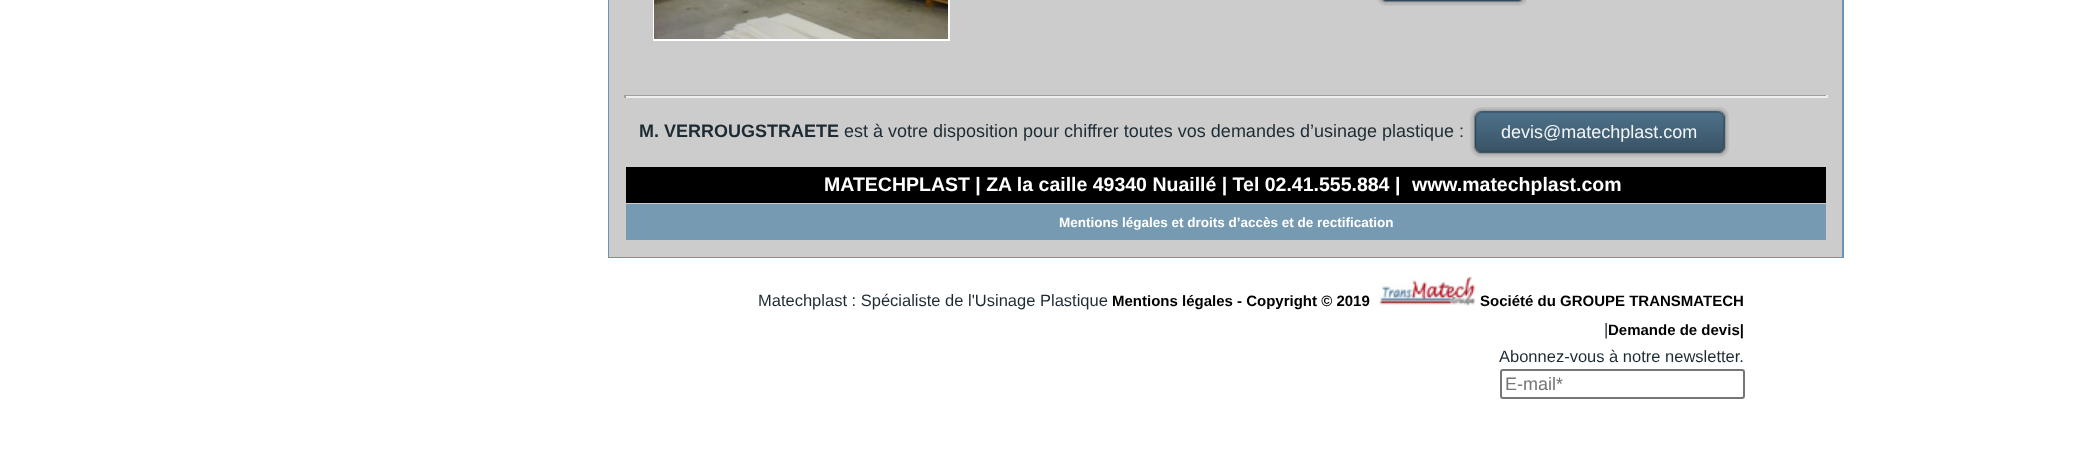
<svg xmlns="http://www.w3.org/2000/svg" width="2086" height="475">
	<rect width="100%" height="100%" fill="#FFFFFF" />
	<rect x="608" y="0" width="1236" height="258" fill="#6894BB" />
	<rect x="609" y="0" width="1233" height="257" fill="#CCCCCC" />
	<rect x="654" y="-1" width="295" height="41" fill="none" stroke="#FFFFFF" stroke-width="2" />
	<image x="654" y="0" width="294" height="39" href="assets/img1.png" />
	<image x="1377" y="0" width="135" height="6" href="assets/img2.png" />
	<image x="1512" y="0" width="15" height="6" href="assets/img3.png" />
	<rect x="624" y="95" width="1203" height="1" fill="#9F9F9F" />
	<rect x="1826" y="95" width="2" height="3" fill="#EEEEEE" />
	<rect x="624" y="96" width="1203" height="2" fill="#EEEEEE" />
	<rect x="624" y="95" width="2" height="3" fill="#9F9F9F" />
	<text x="639" y="137" font-family="Liberation Sans" font-size="18" font-weight="700" fill="#1D2B34">M. VERROUGSTRAETE</text>
	<text x="844" y="137" font-family="Liberation Sans" font-size="18" fill="#1D2B34">est à votre disposition pour chiffrer toutes vos demandes d’usinage plastique :</text>
	<image x="1470" y="107" width="243" height="51" href="assets/img4.png" />
	<image x="1713" y="107" width="16" height="51" href="assets/img5.png" />
	<text x="1501" y="138" font-family="Liberation Sans" font-size="18" fill="#F2F5F8">devis@matechplast.com</text>
	<rect x="626" y="167" width="1200" height="36" fill="#000000" />
	<g font-family="Liberation Sans" font-size="19.5" font-weight="700" fill="#FFFFFF">
		<text x="824" y="191">MATECHPLAST | ZA la caille 49340 Nuaillé | Tel 02.41.555.884 |</text>
		<text x="1412" y="191">www.matechplast.com</text>
	</g>
	<rect x="626" y="204" width="1200" height="36" fill="#769AB2" />
	<text x="1059" y="227" font-family="Liberation Sans" font-size="13.5" font-weight="700" fill="#FFFFFF">Mentions légales et droits d’accès et de rectification</text>
	<text x="758" y="306" font-family="Liberation Sans" font-size="16.5" fill="#1D2B34">Matechplast : Spécialiste de l'Usinage Plastique</text>
	<text x="1112" y="306" font-family="Liberation Sans" font-size="15" font-weight="700" fill="#000000">Mentions légales - Copyright © 2019</text>
	<image x="1378" y="276" width="97" height="30" href="assets/img6.png" />
	<text x="1480" y="306" font-family="Liberation Sans" font-size="15" font-weight="700" fill="#000000">Société du GROUPE TRANSMATECH</text>
	<text x="1604" y="335" font-family="Liberation Sans" font-size="16.5" fill="#1D2B34">|</text>
	<text x="1608" y="335" font-family="Liberation Sans" font-size="15" font-weight="700" fill="#000000">Demande de devis|</text>
	<text x="1499" y="362" font-family="Liberation Sans" font-size="16.5" fill="#1D2B34">Abonnez-vous à notre newsletter.</text>
	<rect x="1501" y="370" width="243" height="28" rx="2" fill="none" stroke="#767676" stroke-width="2" />
	<text x="1505" y="390" font-family="Liberation Sans" font-size="18" fill="#757575">E-mail*</text>
</svg>
